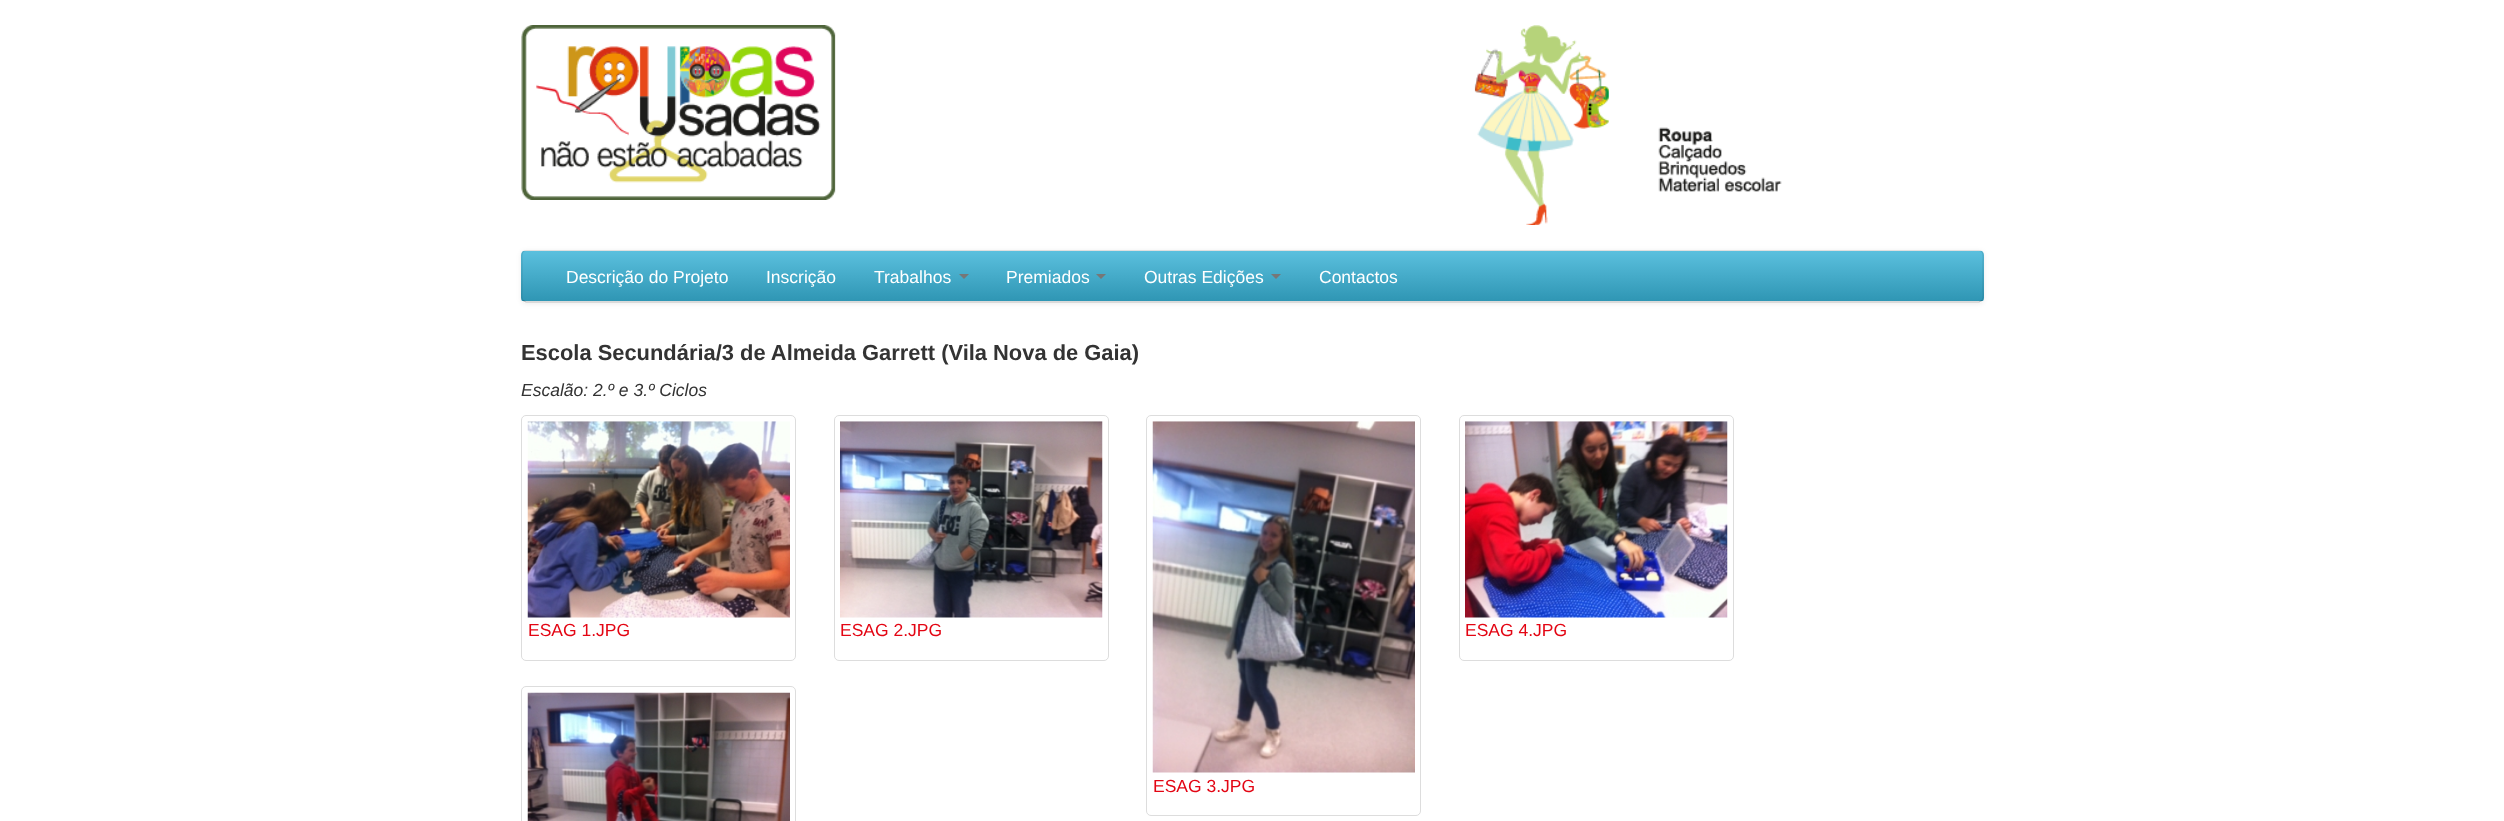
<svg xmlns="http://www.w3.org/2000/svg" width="2504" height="821">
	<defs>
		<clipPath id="clip1"><rect x="521" y="250" width="1463" height="53" rx="5" /></clipPath>
		<linearGradient id="g1" gradientUnits="userSpaceOnUse" x1="1253" y1="251" x2="1253" y2="301"><stop offset="0" stop-color="#5BC0DE" /><stop offset="1" stop-color="#2F96B4" /></linearGradient>
	</defs>
	<rect width="100%" height="100%" fill="#FFFFFF" />
	<image x="521" y="25" width="315" height="175" href="assets/img1.png" />
	<image x="1474" y="25" width="135" height="200" href="assets/img2.png" />
	<image x="1658" y="127" width="124" height="65" href="assets/img3.png" />
	<rect x="521" y="251" width="1463" height="53" rx="5" fill="#000000" fill-opacity="0.07" filter="blur(2.5px)" />
	<rect x="521" y="250" width="1463" height="53" rx="5" fill="#FAFAFA" />
	<g clip-path="url(#clip1)">
		<rect x="521" y="251" width="1463" height="50" fill="url(#g1)" />
	</g>
	<path d="M1982 300.5L1979 302H526L523 300.5" fill="none" stroke="#000000" stroke-opacity="0.25" stroke-width="1.2" />
	<path d="M523 300.5C521 298 522 292.5 522 290.5V262C522 259 520.5 250.5 526 250.5H1979C1984.5 250.5 1983 259 1983 262V290.5C1983 292.5 1984 298 1982 300.5" fill="none" stroke="#000000" stroke-opacity="0.1" stroke-width="1.2" />
	<g font-family="Liberation Sans" font-size="17.5" fill="#FFFFFF">
		<text x="566" y="283">Descrição do Projeto</text>
		<text x="766" y="283">Inscrição</text>
		<text x="874" y="283">Trabalhos</text>
	</g>
	<path d="M959 274H969L964 279Z" fill="#777777" />
	<text x="1006" y="283" font-family="Liberation Sans" font-size="17.5" fill="#FFFFFF">Premiados</text>
	<path d="M1096 274H1106L1101 279Z" fill="#777777" />
	<text x="1144" y="283" font-family="Liberation Sans" font-size="17.5" fill="#FFFFFF">Outras Edições</text>
	<path d="M1271 274H1281L1276 279Z" fill="#777777" />
	<text x="1319" y="283" font-family="Liberation Sans" font-size="17.5" fill="#FFFFFF">Contactos</text>
	<text x="521" y="360" font-family="Liberation Sans" font-size="21.9" font-weight="700" fill="#333333">Escola Secundária/3 de Almeida Garrett (Vila Nova de Gaia)</text>
	<text x="521" y="396" font-family="Liberation Sans" font-size="17.5" font-style="italic" fill="#333333">Escalão: 2.º e 3.º Ciclos</text>
	<rect x="521.5" y="415.5" width="274" height="245" rx="4.5" fill="none" stroke="#DDDDDD" />
	<image x="527" y="421" width="263" height="197" href="assets/img4.png" />
	<text x="528" y="636" font-family="Liberation Sans" font-size="17.5" fill="#E30513">ESAG 1.JPG</text>
	<rect x="834.5" y="415.5" width="274" height="245" rx="4.5" fill="none" stroke="#DDDDDD" />
	<image x="840" y="421" width="263" height="197" href="assets/img5.png" />
	<text x="840" y="636" font-family="Liberation Sans" font-size="17.5" fill="#E30513">ESAG 2.JPG</text>
	<rect x="1459.5" y="415.5" width="274" height="245" rx="4.5" fill="none" stroke="#DDDDDD" />
	<image x="1465" y="421" width="263" height="197" href="assets/img6.png" />
	<text x="1465" y="636" font-family="Liberation Sans" font-size="17.5" fill="#E30513">ESAG 4.JPG</text>
	<rect x="521.5" y="686.5" width="274" height="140" rx="4.5" fill="none" stroke="#DDDDDD" />
	<image x="527" y="692" width="263" height="129" href="assets/img7.png" />
	<rect x="1146.5" y="415.5" width="274" height="400" rx="4.5" fill="none" stroke="#DDDDDD" />
	<image x="1152" y="421" width="263" height="352" href="assets/img8.png" />
	<text x="1153" y="792" font-family="Liberation Sans" font-size="17.5" fill="#E30513">ESAG 3.JPG</text>
</svg>
